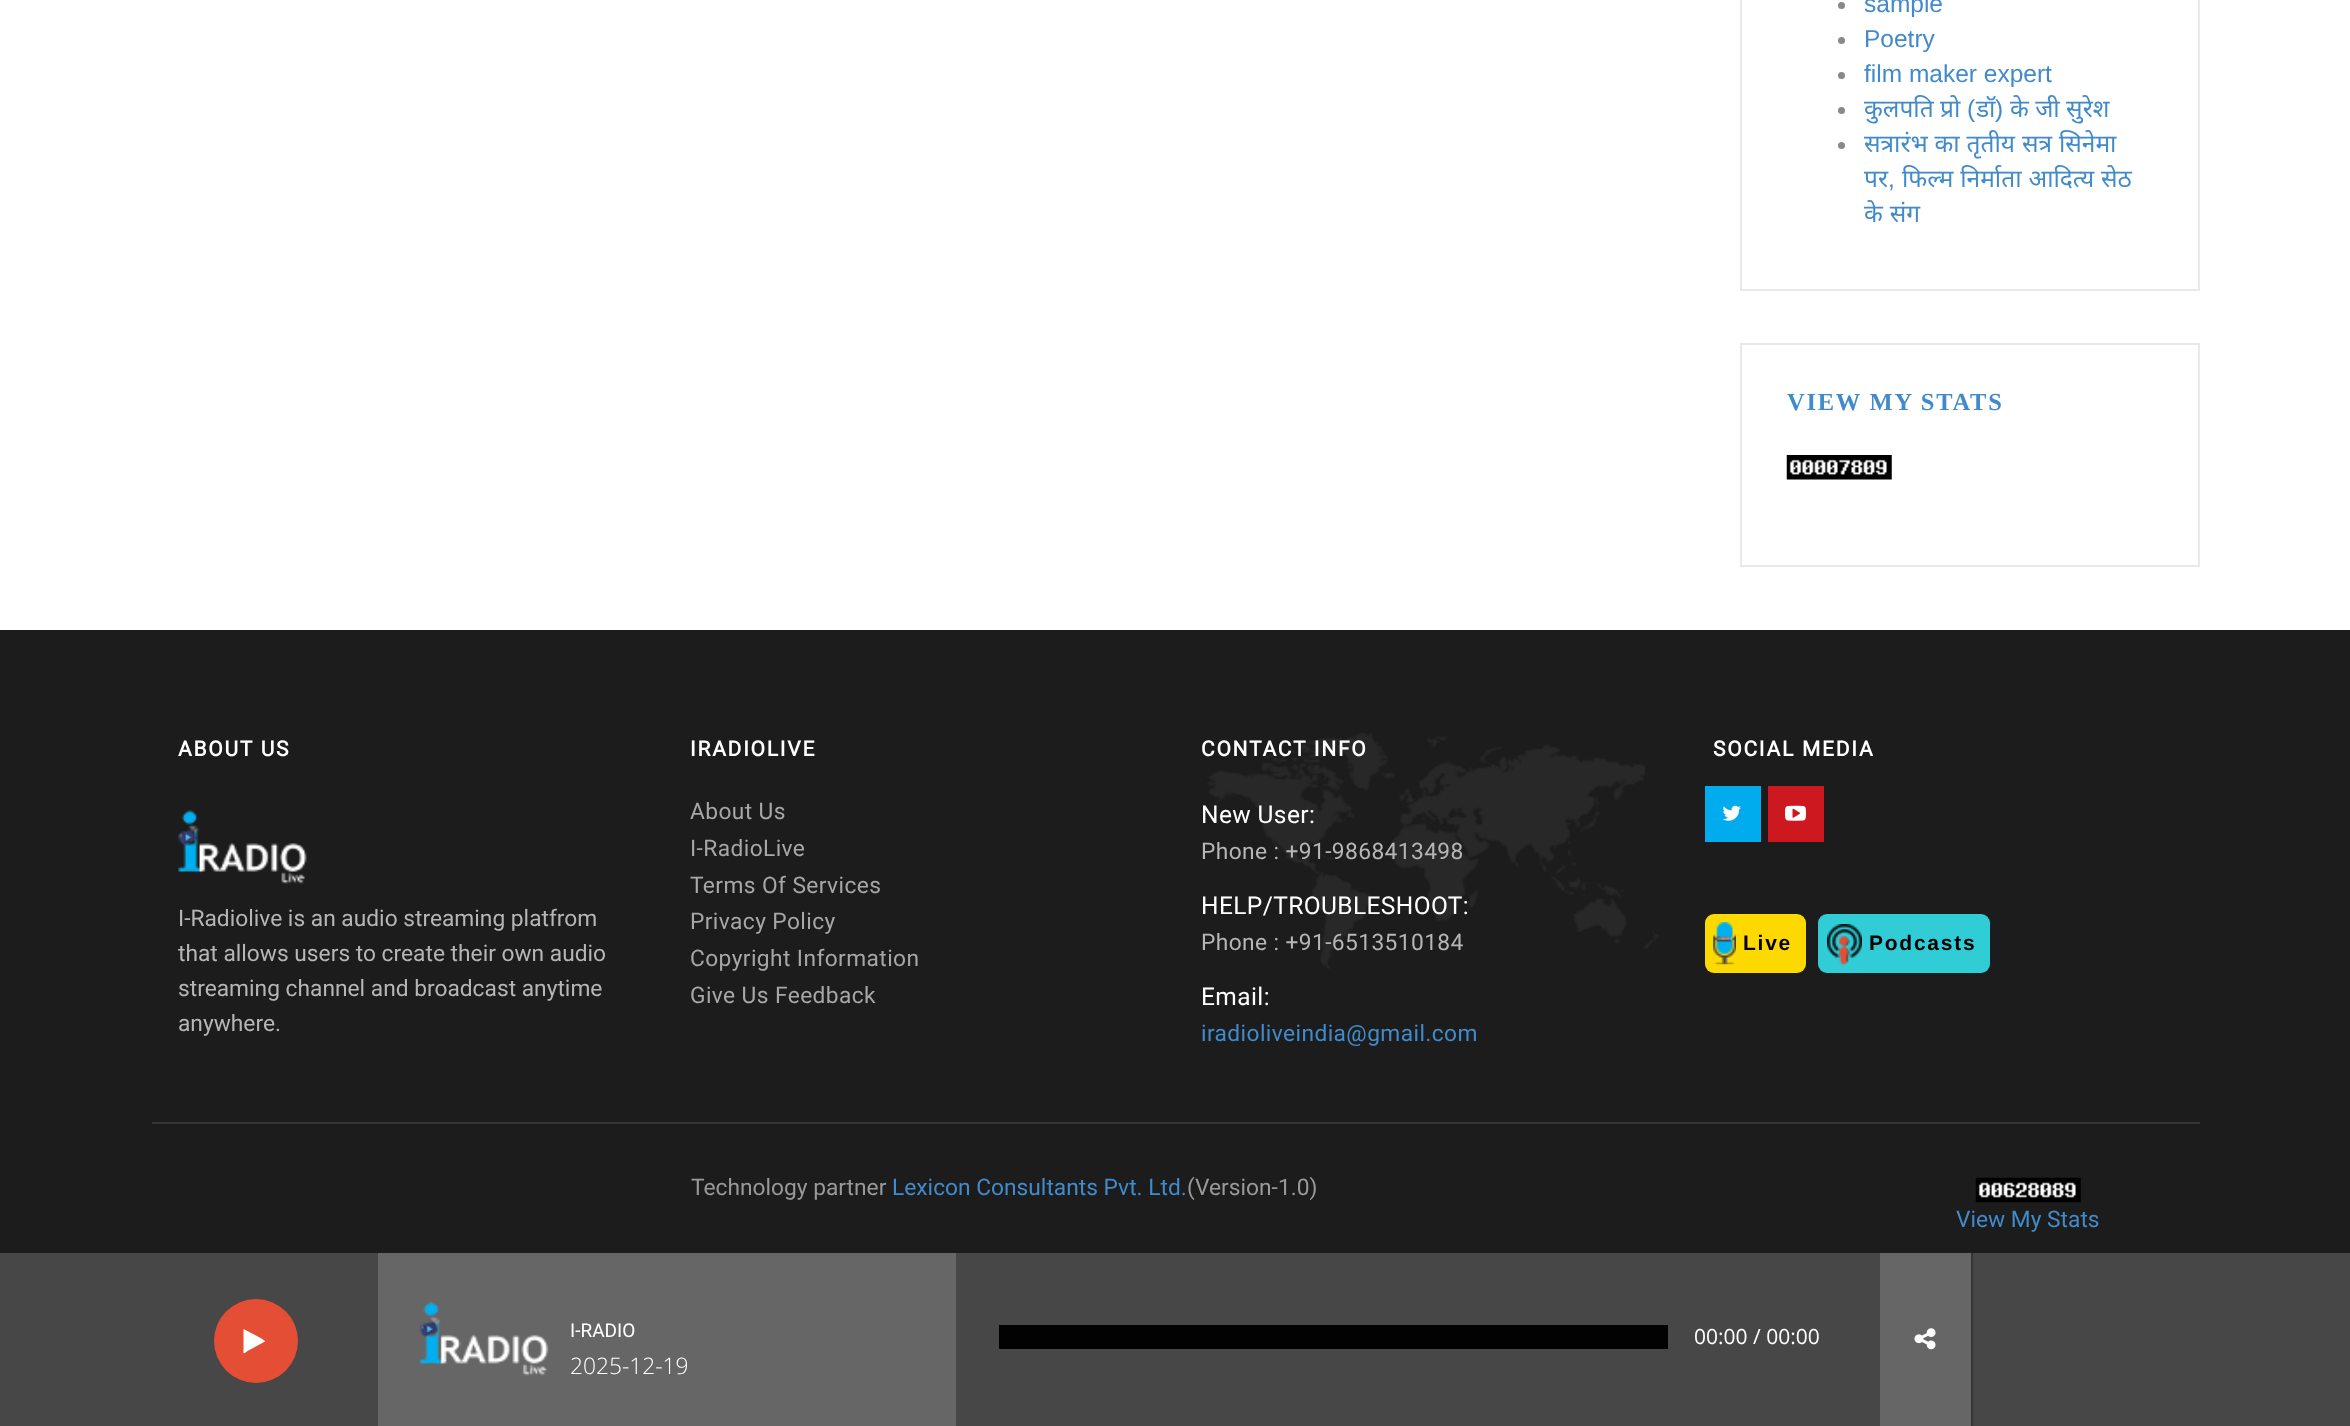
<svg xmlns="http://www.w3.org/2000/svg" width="2350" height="1426">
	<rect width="100%" height="100%" fill="#FFFFFF" />
	<rect x="1741" y="-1" width="458" height="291" fill="none" stroke="#E9E9E9" stroke-width="2" />
	<circle cx="1841.5" cy="5.5" r="3.5" fill="#888888" />
	<text x="1864" y="12" font-family="Liberation Sans" font-size="24.5" fill="#428BCA">sample</text>
	<circle cx="1841.5" cy="40.5" r="3.5" fill="#888888" />
	<text x="1864" y="47" font-family="Liberation Sans" font-size="24.5" fill="#428BCA">Poetry</text>
	<circle cx="1841.5" cy="75.5" r="3.5" fill="#888888" />
	<text x="1864" y="82" font-family="Liberation Sans" font-size="24.5" fill="#428BCA">film maker expert</text>
	<circle cx="1841.5" cy="110.5" r="3.5" fill="#888888" />
	<text x="1864" y="117" font-family="Noto Sans" font-size="24.5" fill="#428BCA">कुलपति प्रो</text>
	<text x="1967" y="117" font-family="Liberation Sans" font-size="24.5" fill="#428BCA">(</text>
	<text x="1976" y="117" font-family="Noto Sans" font-size="24.5" fill="#428BCA">डॉ</text>
	<text x="1995" y="117" font-family="Liberation Sans" font-size="24.5" fill="#428BCA">)</text>
	<text x="2010" y="117" font-family="Noto Sans" font-size="24.5" fill="#428BCA">के जी सुरेश</text>
	<circle cx="1841.5" cy="145.5" r="3.5" fill="#888888" />
	<g font-family="Noto Sans" font-size="24.5" fill="#428BCA">
		<text x="1864" y="152" word-spacing="0.5">सत्रारंभ का तृतीय सत्र सिनेमा</text>
		<text x="1864" y="187">पर</text>
	</g>
	<text x="1888" y="187" font-family="Liberation Sans" font-size="24.5" fill="#428BCA">,</text>
	<g font-family="Noto Sans" font-size="24.5" fill="#428BCA">
		<text x="1902" y="187" word-spacing="0.5">फिल्म निर्माता आदित्य सेठ</text>
		<text x="1864" y="222" word-spacing="0.5">के संग</text>
	</g>
	<rect x="1741" y="344" width="458" height="222" fill="none" stroke="#E9E9E9" stroke-width="2" />
	<text x="1787" y="410" font-family="Liberation Serif" font-size="24.5" font-weight="700" letter-spacing="1.75" fill="#428BCA">VIEW MY STATS</text>
	<image x="1786" y="455" width="106" height="25" href="assets/img1.png" />
	<rect x="0" y="630" width="2350" height="623" fill="#1C1C1C" />
	<text x="178" y="756" font-family="Roboto" font-size="21" font-weight="700" letter-spacing="1.75" fill="#FFFFFF">ABOUT US</text>
	<image x="178" y="810" width="129" height="74" href="assets/img2.png" />
	<g font-family="Roboto" font-size="22.75" fill="#B6B6B6">
		<text x="178" y="926">I-Radiolive is an audio streaming platfrom</text>
		<text x="178" y="961">that allows users to create their own audio</text>
		<text x="178" y="996">streaming channel and broadcast anytime</text>
		<text x="178" y="1031">anywhere.</text>
	</g>
	<text x="690" y="756" font-family="Roboto" font-size="21" font-weight="700" letter-spacing="1.75" fill="#FFFFFF">IRADIOLIVE</text>
	<g font-family="Roboto" font-size="22.75" letter-spacing="0.4" fill="#A7A7A7">
		<text x="690" y="819">About Us</text>
		<text x="690" y="856">I-RadioLive</text>
		<text x="690" y="893">Terms Of Services</text>
		<text x="690" y="929">Privacy Policy</text>
		<text x="690" y="966">Copyright Information</text>
		<text x="690" y="1003">Give Us Feedback</text>
	</g>
	<image x="1207" y="732" width="452" height="237" href="assets/img3.png" />
	<text x="1201" y="756" font-family="Roboto" font-size="21" font-weight="700" letter-spacing="1.75" fill="#FFFFFF">CONTACT INFO</text>
	<text x="1201" y="823" font-family="Roboto" font-size="24.5" letter-spacing="0.4" fill="#FFFFFF">New User:</text>
	<text x="1201" y="859" font-family="Roboto" font-size="22.75" letter-spacing="0.4" fill="#B6B6B6">Phone : +91-9868413498</text>
	<text x="1201" y="914" font-family="Roboto" font-size="24.5" letter-spacing="0.4" fill="#FFFFFF">HELP/TROUBLESHOOT:</text>
	<text x="1201" y="950" font-family="Roboto" font-size="22.75" letter-spacing="0.4" fill="#B6B6B6">Phone : +91-6513510184</text>
	<text x="1201" y="1005" font-family="Roboto" font-size="24.5" letter-spacing="0.4" fill="#FFFFFF">Email:</text>
	<text x="1201" y="1041" font-family="Roboto" font-size="22.75" letter-spacing="0.4" fill="#428BCA">iradioliveindia@gmail.com</text>
	<text x="1713" y="756" font-family="Roboto" font-size="21" font-weight="700" letter-spacing="1.75" fill="#FFFFFF">SOCIAL MEDIA</text>
	<rect x="1705" y="786" width="56" height="56" fill="#00ACED" />
	<image x="1722" y="805" width="19" height="16" href="assets/img4.png" />
	<rect x="1768" y="786" width="56" height="56" fill="#CC181E" />
	<image x="1785" y="805" width="21" height="16" href="assets/img5.png" />
	<rect x="1705" y="914" width="101" height="59" rx="9" fill="#FED900" />
	<image x="1713" y="922" width="23" height="43" href="assets/img6.png" />
	<text x="1743" y="950" font-family="Liberation Sans" font-size="21" font-weight="700" letter-spacing="1.75" fill="#000000">Live</text>
	<rect x="1818" y="914" width="172" height="59" rx="9" fill="#30CDD7" />
	<image x="1827" y="924" width="35" height="41" href="assets/img7.png" />
	<text x="1869" y="950" font-family="Liberation Sans" font-size="21" font-weight="700" letter-spacing="1.75" fill="#000000">Podcasts</text>
	<rect x="152" y="1122" width="2048" height="2" fill="#353535" />
	<text x="691" y="1195" font-family="Roboto" font-size="22.75" fill="#999999">Technology partner</text>
	<text x="892" y="1195" font-family="Roboto" font-size="22.75" fill="#428BCA">Lexicon Consultants Pvt. Ltd.</text>
	<text x="1187" y="1195" font-family="Roboto" font-size="22.75" fill="#999999">(Version-1.0)</text>
	<image x="1975" y="1177" width="106" height="26" href="assets/img8.png" />
	<text x="1956" y="1227" font-family="Roboto" font-size="22.75" fill="#428BCA">View My Stats</text>
	<rect x="0" y="1253" width="2350" height="173" fill="#474747" />
	<circle cx="256" cy="1341" r="42" fill="#E34E35" />
	<path d="M265 1341.5L247.5 1351C247 1351.5 244 1354 243.5 1353V1329L261.5 1338.5L265 1341Z" fill="#FFFFFF" />
	<rect x="378" y="1253" width="578" height="173" fill="#666666" />
	<image x="419" y="1301" width="130" height="75" href="assets/img9.png" />
	<text x="570" y="1337" font-family="Roboto" font-size="19" fill="#FFFFFF">I-RADIO</text>
	<text x="570" y="1374" font-family="Open Sans" font-size="22.75" font-weight="300" fill="#FFFFFF">2025-12-19</text>
	<rect x="999" y="1325" width="669" height="24" fill="#020202" />
	<text x="1694" y="1344" font-family="Open Sans" font-size="21" fill="#FFFFFF">00:00 / 00:00</text>
	<rect x="1880" y="1253" width="91" height="173" fill="#666666" />
	<rect x="1971" y="1253" width="2" height="173" fill="#353535" />
	<image x="1914" y="1328" width="22" height="22" href="assets/img10.png" />
</svg>
